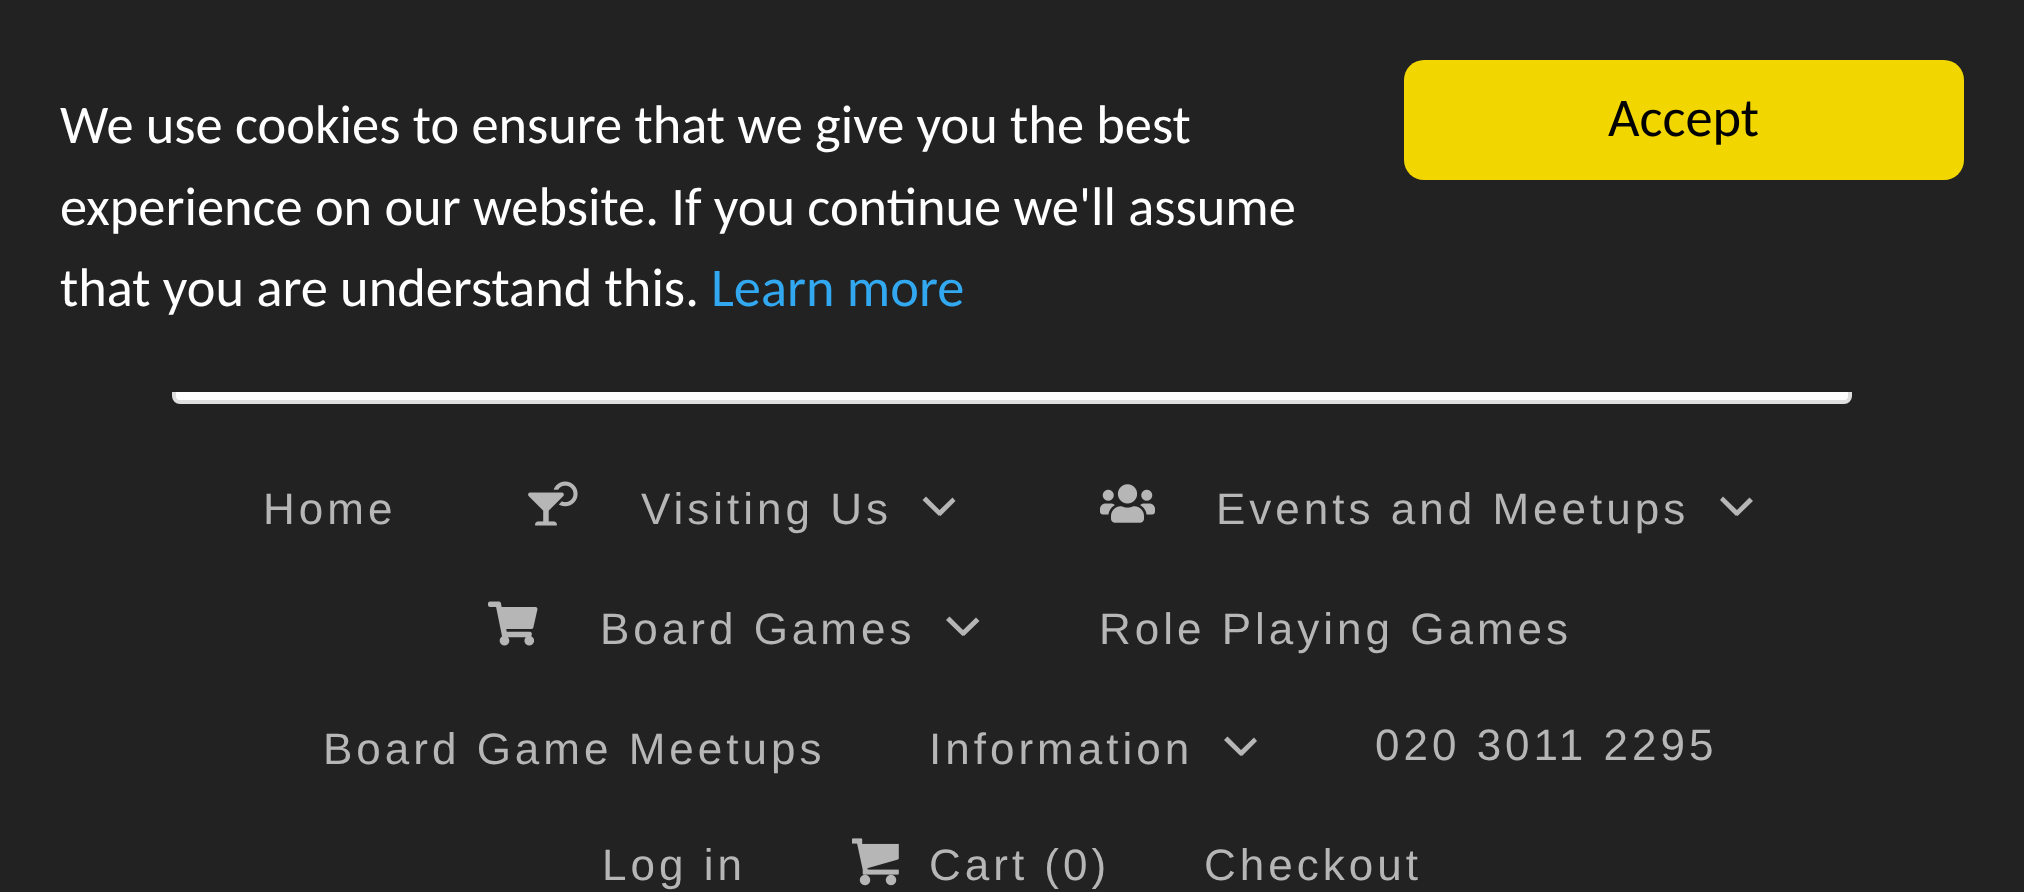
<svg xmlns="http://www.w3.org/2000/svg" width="2024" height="892">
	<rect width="100%" height="100%" fill="#222222" />
	<rect x="174" y="286" width="1676" height="116" rx="6" fill="#FFFFFF" stroke="#DFDFDF" stroke-width="4" />
	<rect x="172" y="284" width="1680" height="108" fill="#222222" />
	<g font-family="Carlito" font-size="54.4" fill="#FFFFFF">
		<text x="60" y="143">We use cookies to ensure that we give you the best</text>
		<text x="60" y="225">experience on our website. If you continue we'll assume</text>
		<text x="60" y="306">that you are understand this.</text>
	</g>
	<text x="711" y="306" font-family="Carlito" font-size="54.4" fill="#31A8F0">Learn more</text>
	<rect x="1404" y="60" width="560" height="120" rx="20" fill="#F1D600" />
	<text x="1608" y="136" font-family="Carlito" font-size="54.4" fill="#000000">Accept</text>
	<text x="263" y="524" font-family="Liberation Sans" font-size="44" letter-spacing="4" fill="#B6B6B6">Home</text>
	<image x="528" y="481" width="50" height="45" href="assets/img1.png" />
	<text x="641" y="524" font-family="Liberation Sans" font-size="44" letter-spacing="4" fill="#B6B6B6">Visiting Us</text>
	<path d="M952.5 497.5L955.5 501L940.5 516L937 512.5Z" fill="#B6B6B6" />
	<path d="M926 496.5L942 512.5L939 516L922.5 500Z" fill="#B6B6B6" />
	<image x="1100" y="484" width="55" height="39" href="assets/img2.png" />
	<text x="1216" y="524" font-family="Liberation Sans" font-size="44" letter-spacing="4" fill="#B6B6B6">Events and Meetups</text>
	<path d="M1749.5 497.5L1753 501L1737.5 516L1734.5 512.5Z" fill="#B6B6B6" />
	<path d="M1723 496.5L1739.5 512.5L1736 516L1720 500Z" fill="#B6B6B6" />
	<image x="488" y="601" width="50" height="45" href="assets/img3.png" />
	<text x="600" y="644" font-family="Liberation Sans" font-size="44" letter-spacing="4" fill="#B6B6B6">Board Games</text>
	<path d="M976 617.5L979.5 621L964 636L960.5 632.5Z" fill="#B6B6B6" />
	<path d="M949.5 616.5L965.5 632.5L962.5 636L946 620Z" fill="#B6B6B6" />
	<g font-family="Liberation Sans" font-size="44" letter-spacing="4" fill="#B6B6B6">
		<text x="1099" y="644">Role Playing Games</text>
		<text x="323" y="764">Board Game Meetups</text>
		<text x="929" y="764">Information</text>
	</g>
	<path d="M1254 737.5L1257 741L1242 756L1238.5 752.5Z" fill="#B6B6B6" />
	<path d="M1227.5 736.5L1243.5 752.5L1240.5 756L1224 740Z" fill="#B6B6B6" />
	<g font-family="Liberation Sans" font-size="44" letter-spacing="4" fill="#B6B6B6">
		<text x="1375" y="760">020 3011 2295</text>
		<text x="602" y="880">Log in</text>
	</g>
	<image x="852" y="838" width="47" height="48" href="assets/img4.png" />
	<g font-family="Liberation Sans" font-size="44" letter-spacing="4" fill="#B6B6B6">
		<text x="929" y="880">Cart (0)</text>
		<text x="1204" y="880">Checkout</text>
	</g>
</svg>
